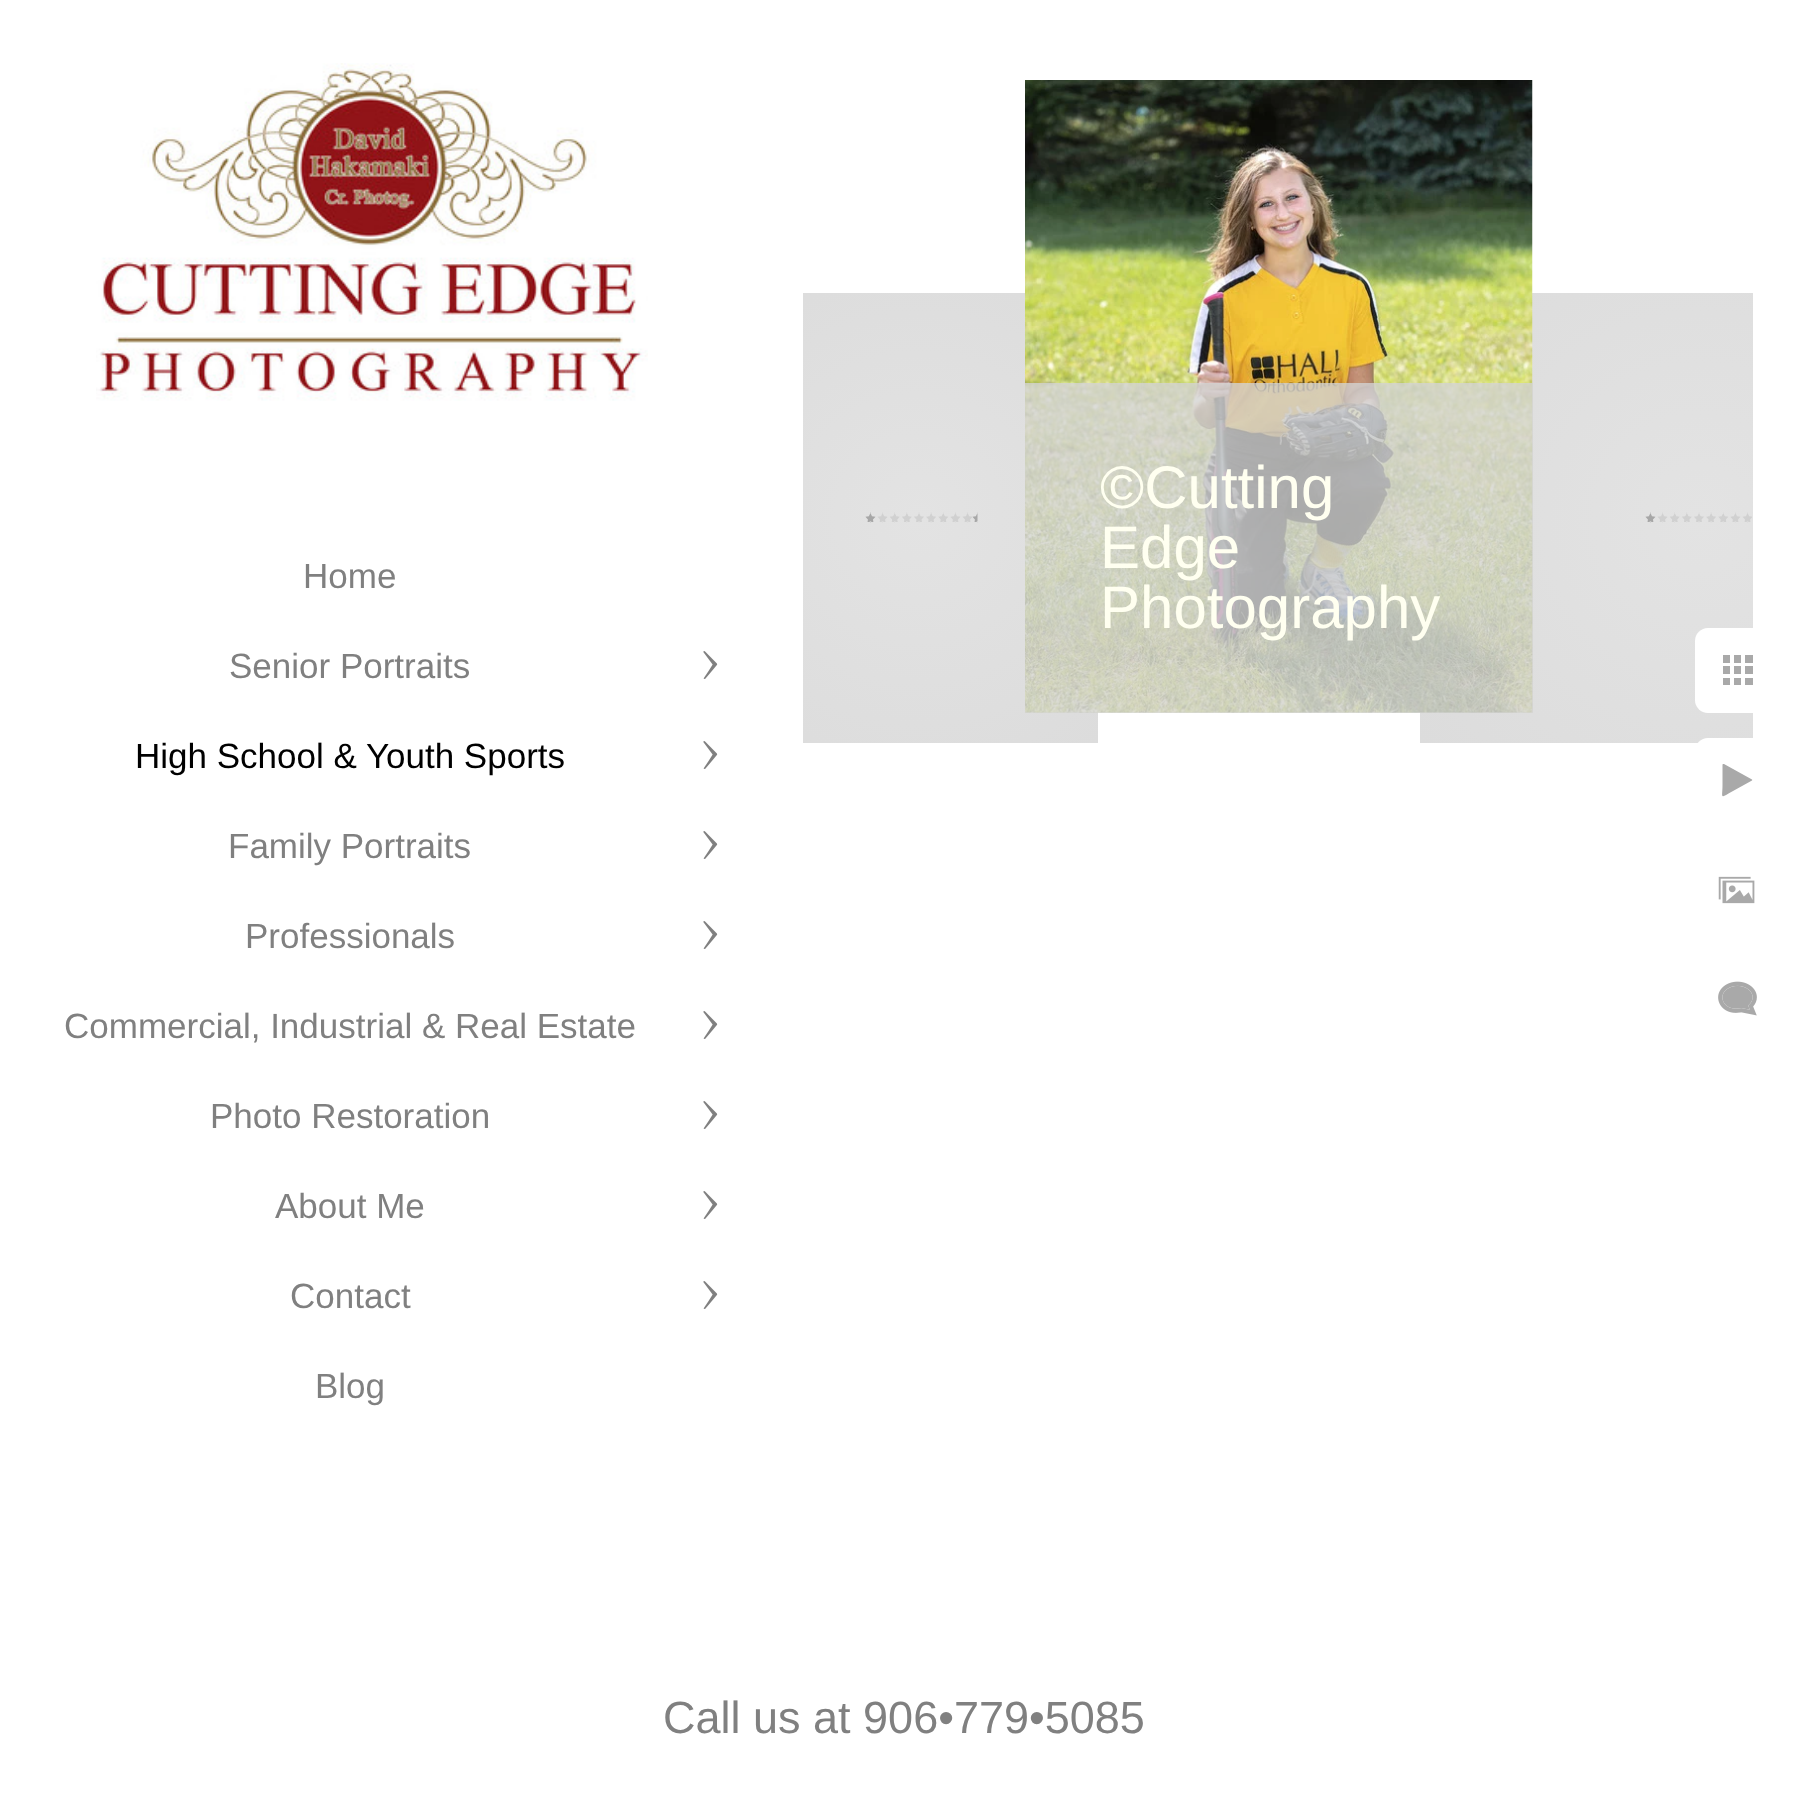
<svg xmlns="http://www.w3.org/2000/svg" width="1804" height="1819">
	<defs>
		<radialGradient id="g1" gradientUnits="userSpaceOnUse" cx="919" cy="518" r="287"><stop offset="0" stop-color="#E3E3E3" /><stop offset="1" stop-color="#DCDCDC" /></radialGradient>
		<radialGradient id="g2" gradientUnits="userSpaceOnUse" cx="1700" cy="518" r="359"><stop offset="0" stop-color="#E3E3E3" /><stop offset="1" stop-color="#DCDCDC" /></radialGradient>
	</defs>
	<rect width="100%" height="100%" fill="#FFFFFF" />
	<image x="96" y="63" width="552" height="338" href="assets/img1.png" />
	<g font-family="Liberation Sans" font-size="35" fill="#808080">
		<text x="303" y="588">Home</text>
		<text x="229" y="678">Senior Portraits</text>
	</g>
	<image x="703" y="651" width="15" height="28" href="assets/img2.png" />
	<text x="135" y="768" font-family="Liberation Sans" font-size="35" fill="#000000">High School &amp; Youth Sports</text>
	<image x="703" y="741" width="15" height="28" href="assets/img2.png" />
	<text x="228" y="858" font-family="Liberation Sans" font-size="35" fill="#808080">Family Portraits</text>
	<image x="703" y="831" width="15" height="28" href="assets/img2.png" />
	<text x="245" y="948" font-family="Liberation Sans" font-size="35" fill="#808080">Professionals</text>
	<image x="703" y="921" width="15" height="28" href="assets/img2.png" />
	<text x="64" y="1038" font-family="Liberation Sans" font-size="35" fill="#808080">Commercial, Industrial &amp; Real Estate</text>
	<image x="703" y="1011" width="15" height="28" href="assets/img2.png" />
	<text x="210" y="1128" font-family="Liberation Sans" font-size="35" fill="#808080">Photo Restoration</text>
	<image x="703" y="1101" width="15" height="28" href="assets/img2.png" />
	<text x="275" y="1218" font-family="Liberation Sans" font-size="35" fill="#808080">About Me</text>
	<image x="703" y="1191" width="15" height="28" href="assets/img2.png" />
	<text x="290" y="1308" font-family="Liberation Sans" font-size="35" fill="#808080">Contact</text>
	<image x="703" y="1281" width="15" height="28" href="assets/img2.png" />
	<text x="315" y="1398" font-family="Liberation Sans" font-size="35" fill="#808080">Blog</text>
	<rect x="803" y="293" width="295" height="450" fill="url(#g1)" />
	<image x="865" y="512" width="113" height="11" href="assets/img3.png" />
	<rect x="1420" y="293" width="333" height="450" fill="url(#g2)" />
	<image x="1025" y="80" width="508" height="633" href="assets/img4.png" />
	<rect x="1025" y="383" width="508" height="330" fill="#D3D3D3" fill-opacity="0.8" />
	<g font-family="Liberation Sans" font-size="60" fill="#FFFFF0">
		<text x="1100" y="508">©Cutting</text>
		<text x="1100" y="568">Edge</text>
		<text x="1100" y="628">Photography</text>
	</g>
	<image x="1645" y="512" width="107" height="11" href="assets/img5.png" />
	<rect x="1695" y="628" width="85" height="85" rx="13" fill="#FFFFFF" />
	<image x="1723" y="655" width="30" height="30" href="assets/img6.png" />
	<rect x="1695" y="738" width="85" height="85" rx="13" fill="#FFFFFF" />
	<path d="M1752 780.5L1728.5 793.5C1720 798.5 1722.5 797 1722.5 785V764.5L1723 764H1724L1752 779.5C1752.5 780 1752 780.5 1752 780.5Z" fill="#A9A9A9" />
	<image x="1718" y="876" width="37" height="28" href="assets/img7.png" />
	<image x="1718" y="981" width="39" height="35" href="assets/img8.png" />
	<text x="663" y="1733" font-family="Liberation Sans" font-size="45" fill="#808080">Call us at 906•779•5085</text>
</svg>
